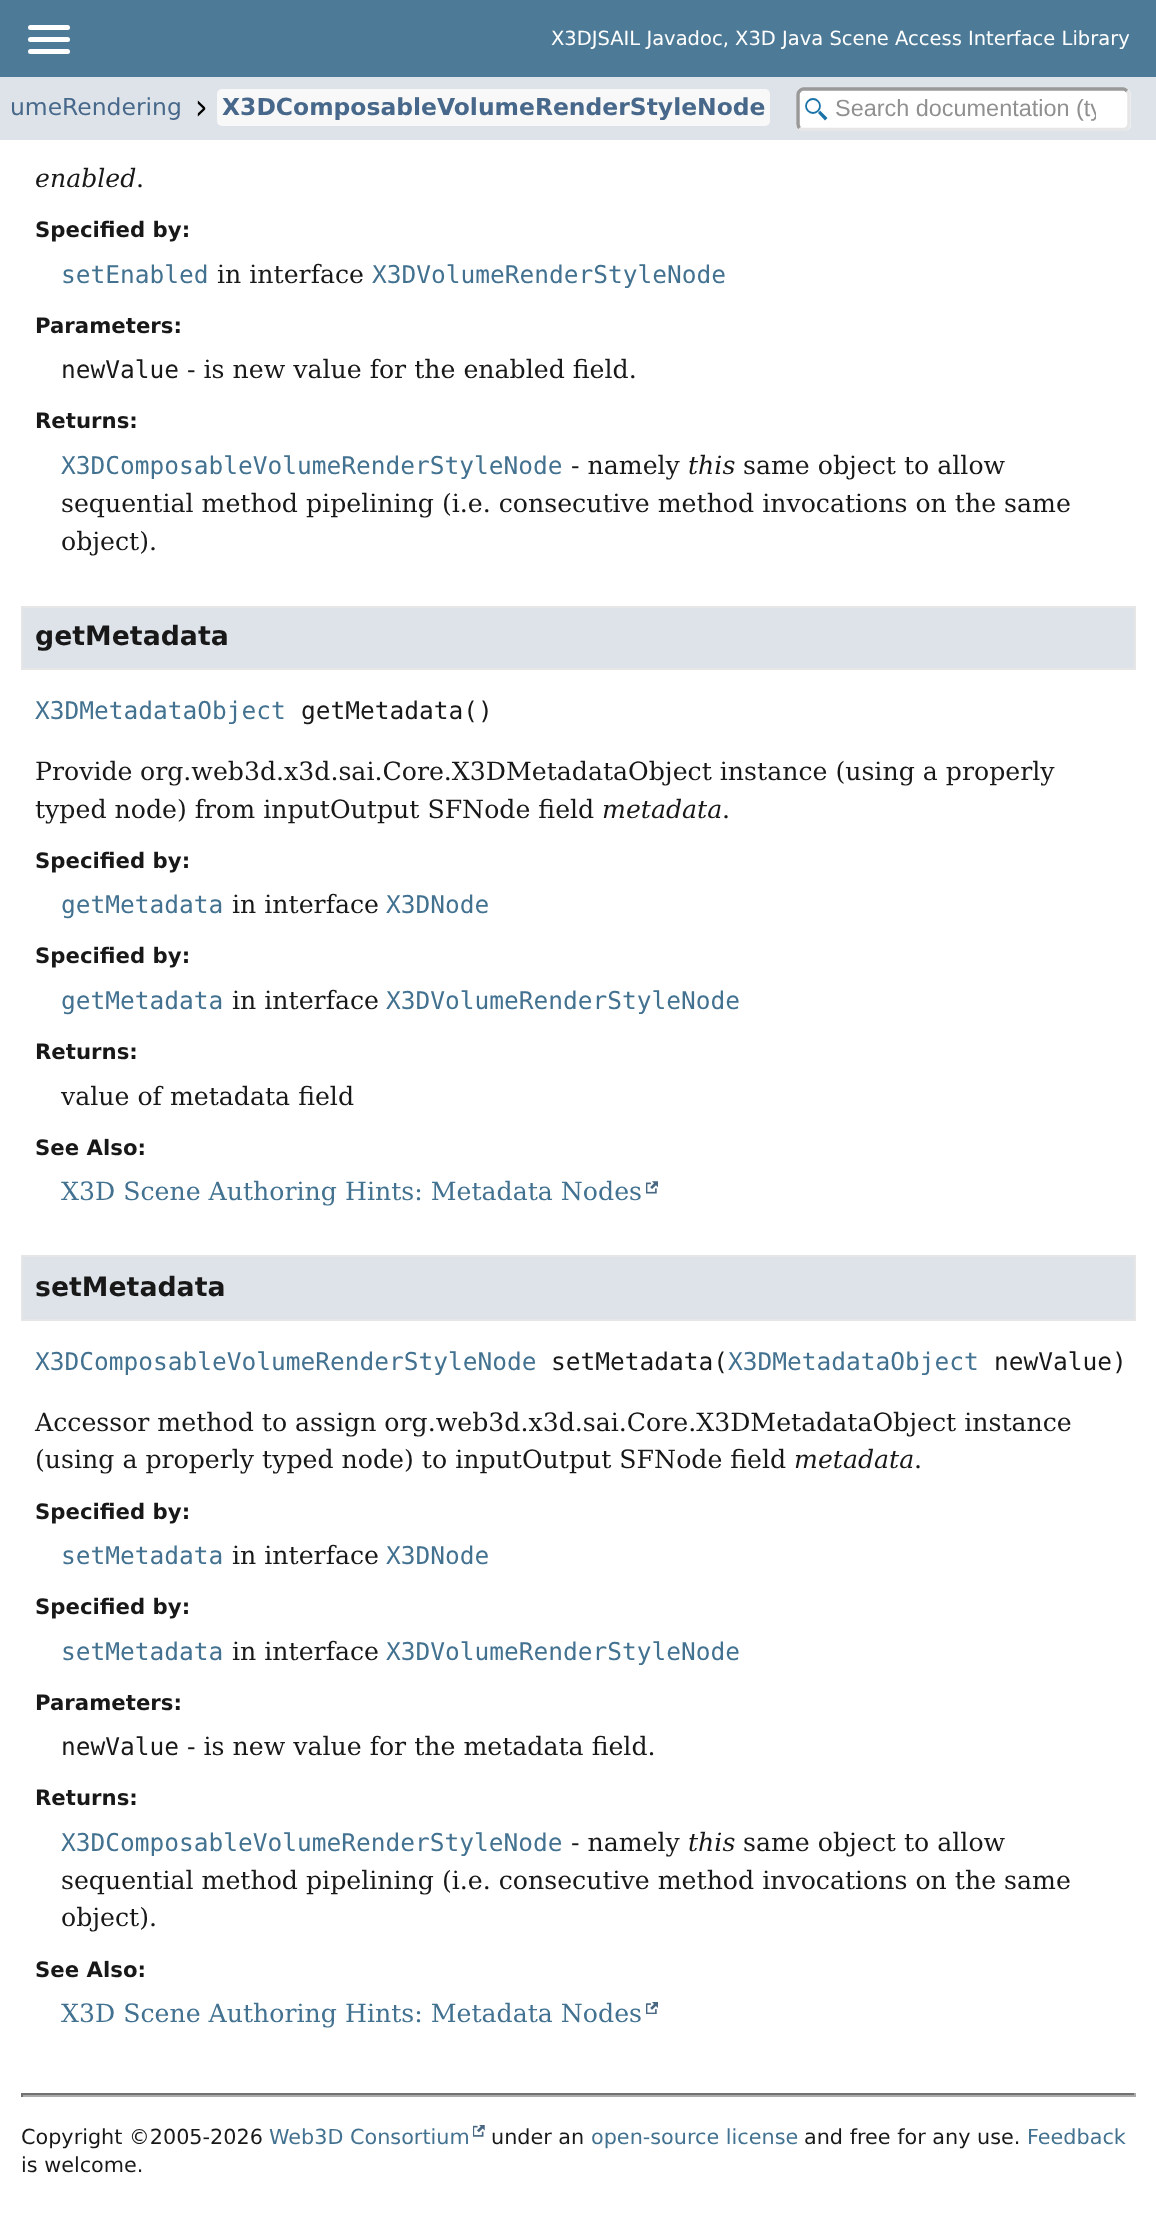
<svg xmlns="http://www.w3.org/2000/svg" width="1156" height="2219">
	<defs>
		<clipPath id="clip1"><rect x="835" y="96" width="261" height="27" /></clipPath>
	</defs>
	<rect width="100%" height="100%" fill="#FFFFFF" />
	<rect x="0" y="0" width="1156" height="77" fill="#4D7A97" />
	<rect x="28" y="25" width="42" height="5" rx="2.5" fill="#FFFFFF" />
	<rect x="28" y="37" width="42" height="5" rx="2.5" fill="#FFFFFF" />
	<rect x="28" y="49" width="42" height="5" rx="2.5" fill="#FFFFFF" />
	<text x="551" y="45" font-family="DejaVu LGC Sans" font-size="19.5" fill="#FFFFFF">X3DJSAIL Javadoc, X3D Java Scene Access Interface Library</text>
	<rect x="0" y="77" width="1156" height="63" fill="#DEE3E9" />
	<text x="10" y="115" font-family="DejaVu LGC Sans" font-size="23.45" fill="#47688A">umeRendering</text>
	<image x="197" y="100" width="9" height="17" href="assets/img1.png" />
	<rect x="217" y="89" width="553" height="37" rx="5" fill="#F8F8F8" />
	<text x="222" y="115" font-family="DejaVu LGC Sans" font-size="23.45" font-weight="700" fill="#47688A">X3DComposableVolumeRenderStyleNode</text>
	<rect x="796" y="88" width="335" height="43" rx="7" fill="#FFFFFF" />
	<path d="M820 110.5C819.5 111.5 818.5 112.5 818 113L825 120.5L827.5 118Z" fill="#1A73A8" />
	<circle cx="813" cy="106" r="7" fill="none" stroke="#1A73A8" stroke-width="1.8" />
	<path d="M1127 91C1128 92 1129 93 1129 94.5V124C1129 125.5 1128 127 1127 128C1126 129 1125 129.5 1123.5 129.5H803C802 129.5 800.5 129 799.5 128" fill="none" stroke="#E6E6E6" stroke-width="3.5" />
	<path d="M799.5 128C798.5 127 798 125.5 798 124V94.5C798 93 798.5 92 799.5 91C800.5 90 802 89 803 89H1123.5C1125 89 1126 90 1127 91" fill="none" stroke="#999999" stroke-width="3.5" />
	<g clip-path="url(#clip1)">
		<text x="835" y="116" font-family="Liberation Sans" font-size="23.45" fill="#909090">Search documentation (ty</text>
	</g>
	<text x="35" y="187" font-family="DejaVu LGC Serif" font-size="25.2" font-style="italic" fill="#181818">enabled</text>
	<text x="136" y="187" font-family="DejaVu LGC Serif" font-size="25.2" fill="#181818">.</text>
	<text x="35" y="237" font-family="DejaVu LGC Sans" font-size="21.25" font-weight="700" fill="#181818">Specified by:</text>
	<text x="61" y="283" font-family="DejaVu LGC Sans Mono" font-size="24.5" fill="#437291">setEnabled</text>
	<text x="217" y="283" font-family="DejaVu LGC Serif" font-size="25.2" fill="#181818">in interface</text>
	<text x="372" y="283" font-family="DejaVu LGC Sans Mono" font-size="24.5" fill="#437291">X3DVolumeRenderStyleNode</text>
	<text x="35" y="333" font-family="DejaVu LGC Sans" font-size="21.25" font-weight="700" fill="#181818">Parameters:</text>
	<text x="61" y="378" font-family="DejaVu LGC Sans Mono" font-size="24.5" fill="#181818">newValue</text>
	<text x="187" y="378" font-family="DejaVu LGC Serif" font-size="25.2" fill="#181818">- is new value for the enabled field.</text>
	<text x="35" y="428" font-family="DejaVu LGC Sans" font-size="21.25" font-weight="700" fill="#181818">Returns:</text>
	<text x="61" y="474" font-family="DejaVu LGC Sans Mono" font-size="24.5" fill="#437291">X3DComposableVolumeRenderStyleNode</text>
	<text x="571" y="474" font-family="DejaVu LGC Serif" font-size="25.2" fill="#181818">- namely</text>
	<text x="688" y="474" font-family="DejaVu LGC Serif" font-size="25.2" font-style="italic" fill="#181818">this</text>
	<g font-family="DejaVu LGC Serif" font-size="25.2" fill="#181818">
		<text x="743" y="474">same object to allow</text>
		<text x="61" y="512">sequential method pipelining (i.e. consecutive method invocations on the same</text>
		<text x="61" y="550">object).</text>
	</g>
	<rect x="22" y="607" width="1113" height="62" fill="#DEE3E9" stroke="#E6E6E6" stroke-width="2" />
	<text x="35" y="645" font-family="DejaVu LGC Sans" font-size="26.75" font-weight="700" fill="#181818">getMetadata</text>
	<text x="35" y="719" font-family="DejaVu LGC Sans Mono" font-size="24.5" fill="#437291">X3DMetadataObject</text>
	<text x="301" y="719" font-family="DejaVu LGC Sans Mono" font-size="24.5" fill="#181818">getMetadata()</text>
	<g font-family="DejaVu LGC Serif" font-size="25.2" fill="#181818">
		<text x="35" y="780">Provide</text>
		<text x="140" y="780">org.web3d.x3d.sai.Core.X3DMetadataObject instance (using a properly</text>
		<text x="35" y="818">typed node) from inputOutput SFNode field</text>
	</g>
	<text x="602" y="818" font-family="DejaVu LGC Serif" font-size="25.2" font-style="italic" fill="#181818">metadata</text>
	<text x="722" y="818" font-family="DejaVu LGC Serif" font-size="25.2" fill="#181818">.</text>
	<text x="35" y="868" font-family="DejaVu LGC Sans" font-size="21.25" font-weight="700" fill="#181818">Specified by:</text>
	<text x="61" y="913" font-family="DejaVu LGC Sans Mono" font-size="24.5" fill="#437291">getMetadata</text>
	<text x="232" y="913" font-family="DejaVu LGC Serif" font-size="25.2" fill="#181818">in interface</text>
	<text x="386" y="913" font-family="DejaVu LGC Sans Mono" font-size="24.5" fill="#437291">X3DNode</text>
	<text x="35" y="963" font-family="DejaVu LGC Sans" font-size="21.25" font-weight="700" fill="#181818">Specified by:</text>
	<text x="61" y="1009" font-family="DejaVu LGC Sans Mono" font-size="24.5" fill="#437291">getMetadata</text>
	<text x="232" y="1009" font-family="DejaVu LGC Serif" font-size="25.2" fill="#181818">in interface</text>
	<text x="386" y="1009" font-family="DejaVu LGC Sans Mono" font-size="24.5" fill="#437291">X3DVolumeRenderStyleNode</text>
	<text x="35" y="1059" font-family="DejaVu LGC Sans" font-size="21.25" font-weight="700" fill="#181818">Returns:</text>
	<text x="61" y="1105" font-family="DejaVu LGC Serif" font-size="25.2" fill="#181818">value of metadata field</text>
	<text x="35" y="1155" font-family="DejaVu LGC Sans" font-size="21.25" font-weight="700" fill="#181818">See Also:</text>
	<text x="61" y="1200" font-family="DejaVu LGC Serif" font-size="25.2" fill="#437291">X3D Scene Authoring Hints: Metadata Nodes</text>
	<image x="646" y="1181" width="12" height="13" href="assets/img2.png" />
	<rect x="22" y="1256" width="1113" height="64" fill="#DEE3E9" stroke="#E6E6E6" stroke-width="2" />
	<text x="35" y="1296" font-family="DejaVu LGC Sans" font-size="26.75" font-weight="700" fill="#181818">setMetadata</text>
	<text x="35" y="1370" font-family="DejaVu LGC Sans Mono" font-size="24.5" fill="#437291">X3DComposableVolumeRenderStyleNode</text>
	<text x="551" y="1370" font-family="DejaVu LGC Sans Mono" font-size="24.5" fill="#181818">setMetadata(</text>
	<text x="728" y="1370" font-family="DejaVu LGC Sans Mono" font-size="24.5" fill="#437291">X3DMetadataObject</text>
	<text x="994" y="1370" font-family="DejaVu LGC Sans Mono" font-size="24.5" fill="#181818">newValue)</text>
	<g font-family="DejaVu LGC Serif" font-size="25.2" fill="#181818">
		<text x="35" y="1431">Accessor method to assign org.web3d.x3d.sai.Core.X3DMetadataObject instance</text>
		<text x="35" y="1468">(using a properly typed node) to inputOutput SFNode field</text>
	</g>
	<text x="794" y="1468" font-family="DejaVu LGC Serif" font-size="25.2" font-style="italic" fill="#181818">metadata</text>
	<text x="914" y="1468" font-family="DejaVu LGC Serif" font-size="25.2" fill="#181818">.</text>
	<text x="35" y="1519" font-family="DejaVu LGC Sans" font-size="21.25" font-weight="700" fill="#181818">Specified by:</text>
	<text x="61" y="1564" font-family="DejaVu LGC Sans Mono" font-size="24.5" fill="#437291">setMetadata</text>
	<text x="232" y="1564" font-family="DejaVu LGC Serif" font-size="25.2" fill="#181818">in interface</text>
	<text x="386" y="1564" font-family="DejaVu LGC Sans Mono" font-size="24.5" fill="#437291">X3DNode</text>
	<text x="35" y="1614" font-family="DejaVu LGC Sans" font-size="21.25" font-weight="700" fill="#181818">Specified by:</text>
	<text x="61" y="1660" font-family="DejaVu LGC Sans Mono" font-size="24.5" fill="#437291">setMetadata</text>
	<text x="232" y="1660" font-family="DejaVu LGC Serif" font-size="25.2" fill="#181818">in interface</text>
	<text x="386" y="1660" font-family="DejaVu LGC Sans Mono" font-size="24.5" fill="#437291">X3DVolumeRenderStyleNode</text>
	<text x="35" y="1710" font-family="DejaVu LGC Sans" font-size="21.25" font-weight="700" fill="#181818">Parameters:</text>
	<text x="61" y="1755" font-family="DejaVu LGC Sans Mono" font-size="24.5" fill="#181818">newValue</text>
	<text x="187" y="1755" font-family="DejaVu LGC Serif" font-size="25.2" fill="#181818">- is new value for the metadata field.</text>
	<text x="35" y="1805" font-family="DejaVu LGC Sans" font-size="21.25" font-weight="700" fill="#181818">Returns:</text>
	<text x="61" y="1851" font-family="DejaVu LGC Sans Mono" font-size="24.5" fill="#437291">X3DComposableVolumeRenderStyleNode</text>
	<text x="571" y="1851" font-family="DejaVu LGC Serif" font-size="25.2" fill="#181818">- namely</text>
	<text x="688" y="1851" font-family="DejaVu LGC Serif" font-size="25.2" font-style="italic" fill="#181818">this</text>
	<g font-family="DejaVu LGC Serif" font-size="25.2" fill="#181818">
		<text x="743" y="1851">same object to allow</text>
		<text x="61" y="1889">sequential method pipelining (i.e. consecutive method invocations on the same</text>
		<text x="61" y="1926">object).</text>
	</g>
	<text x="35" y="1977" font-family="DejaVu LGC Sans" font-size="21.25" font-weight="700" fill="#181818">See Also:</text>
	<text x="61" y="2022" font-family="DejaVu LGC Serif" font-size="25.2" fill="#437291">X3D Scene Authoring Hints: Metadata Nodes</text>
	<image x="646" y="2002" width="12" height="12" href="assets/img3.png" />
	<rect x="21" y="2093" width="1115" height="2" fill="#717171" />
	<rect x="1134" y="2093" width="2" height="4" fill="#AAAAAA" />
	<rect x="21" y="2095" width="1115" height="2" fill="#AAAAAA" />
	<rect x="21" y="2093" width="2" height="4" fill="#717171" />
	<text x="21" y="2144" font-family="DejaVu LGC Sans" font-size="20.75" fill="#181818">Copyright ©2005-2026</text>
	<text x="269" y="2144" font-family="DejaVu LGC Sans" font-size="20.75" fill="#437291">Web3D Consortium</text>
	<image x="473" y="2125" width="12" height="12" href="assets/img4.png" />
	<text x="491" y="2144" font-family="DejaVu LGC Sans" font-size="20.75" fill="#181818">under an</text>
	<text x="591" y="2144" font-family="DejaVu LGC Sans" font-size="20.75" fill="#437291">open-source license</text>
	<text x="804" y="2144" font-family="DejaVu LGC Sans" font-size="20.75" fill="#181818">and free for any use.</text>
	<text x="1027" y="2144" font-family="DejaVu LGC Sans" font-size="20.75" fill="#437291">Feedback</text>
	<text x="21" y="2172" font-family="DejaVu LGC Sans" font-size="20.75" fill="#181818">is welcome.</text>
</svg>
